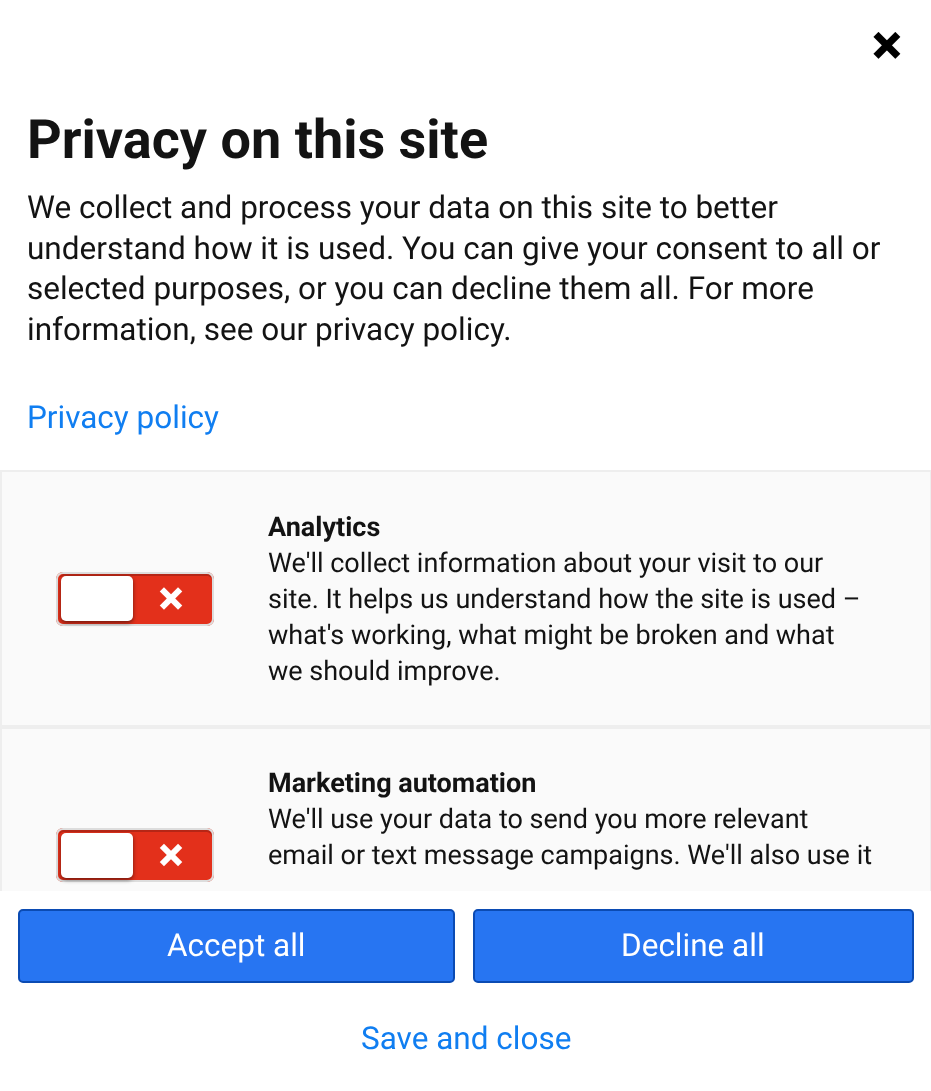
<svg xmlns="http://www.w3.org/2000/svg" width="931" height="1091">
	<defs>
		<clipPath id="clip1"><rect x="0" y="0" width="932" height="891" /></clipPath>
	</defs>
	<rect width="100%" height="100%" fill="#FFFFFF" />
	<image x="873" y="32" width="28" height="27" href="assets/img1.png" />
	<text x="27" y="158" font-family="Roboto" font-size="54" font-weight="700" fill="#131313">Privacy on this site</text>
	<g font-family="Roboto" font-size="31.5" fill="#131313">
		<text x="27" y="218">We collect and process your data on this site to better</text>
		<text x="27" y="259">understand how it is used. You can give your consent to all or</text>
		<text x="27" y="299">selected purposes, or you can decline them all. For more</text>
		<text x="27" y="340">information, see our privacy policy.</text>
	</g>
	<text x="27" y="428" font-family="Roboto" font-size="31.5" fill="#107EF1">Privacy policy</text>
	<rect x="1" y="471" width="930" height="255" fill="#FAFAFA" stroke="#EEEEEE" stroke-width="2" />
	<rect x="56" y="572" width="158" height="54" rx="7" fill="#E3301B" />
	<path d="M63 576H207C209 576 212 578 212 580V579C212 576 210 574 207 574H64C62 574 60 576 59 578C60 577 62 576 63 576Z" fill="#B62616" />
	<rect x="57" y="573" width="156" height="52" rx="6" fill="none" stroke="#DDDDDD" stroke-width="2" />
	<rect x="61" y="578" width="72" height="45" rx="5" fill="#000000" fill-opacity="0.5" filter="blur(2px)" />
	<rect x="61" y="576" width="72" height="45" rx="5" fill="#FFFFFF" />
	<image x="159" y="587" width="24" height="23" href="assets/img2.png" />
	<text x="268" y="536" font-family="Roboto" font-size="27" font-weight="700" fill="#131313">Analytics</text>
	<g font-family="Roboto" font-size="27" fill="#131313">
		<text x="268" y="572">We'll collect information about your visit to our</text>
		<text x="268" y="608">site. It helps us understand how the site is used –</text>
		<text x="268" y="644">what's working, what might be broken and what</text>
		<text x="268" y="680">we should improve.</text>
	</g>
	<rect x="2" y="729" width="928" height="162" fill="#FAFAFA" />
	<rect x="19" y="910" width="435" height="72" rx="4" fill="#2775F2" stroke="#0B4BB3" stroke-width="2" />
	<rect x="474" y="910" width="439" height="72" rx="4" fill="#2775F2" stroke="#0B4BB3" stroke-width="2" />
	<g clip-path="url(#clip1)">
		<rect x="1" y="728" width="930" height="254" fill="none" stroke="#EEEEEE" stroke-width="2" />
	</g>
	<rect x="56" y="828" width="158" height="54" rx="7" fill="#E3301B" />
	<path d="M63 832H207C209 832 212 835 212 837V835C212 832 210 830 207 830H64C61 830 59 832 59 835C60 833 62 832 63 832Z" fill="#B62616" />
	<rect x="57" y="829" width="156" height="52" rx="6" fill="none" stroke="#DDDDDD" stroke-width="2" />
	<rect x="61" y="835" width="72" height="45" rx="5" fill="#000000" fill-opacity="0.5" filter="blur(2px)" />
	<rect x="61" y="833" width="72" height="45" rx="5" fill="#FFFFFF" />
	<image x="159" y="843" width="24" height="24" href="assets/img3.png" />
	<text x="268" y="792" font-family="Roboto" font-size="27" font-weight="700" fill="#131313">Marketing automation</text>
	<g font-family="Roboto" font-size="27" fill="#131313">
		<text x="268" y="828">We'll use your data to send you more relevant</text>
		<text x="268" y="864">email or text message campaigns. We'll also use it</text>
	</g>
	<g font-family="Roboto" font-size="31.5" fill="#FFFFFF">
		<text x="167" y="956">Accept all</text>
		<text x="621" y="956">Decline all</text>
	</g>
	<text x="361" y="1049" font-family="Roboto" font-size="31.5" fill="#107EF1">Save and close</text>
</svg>
